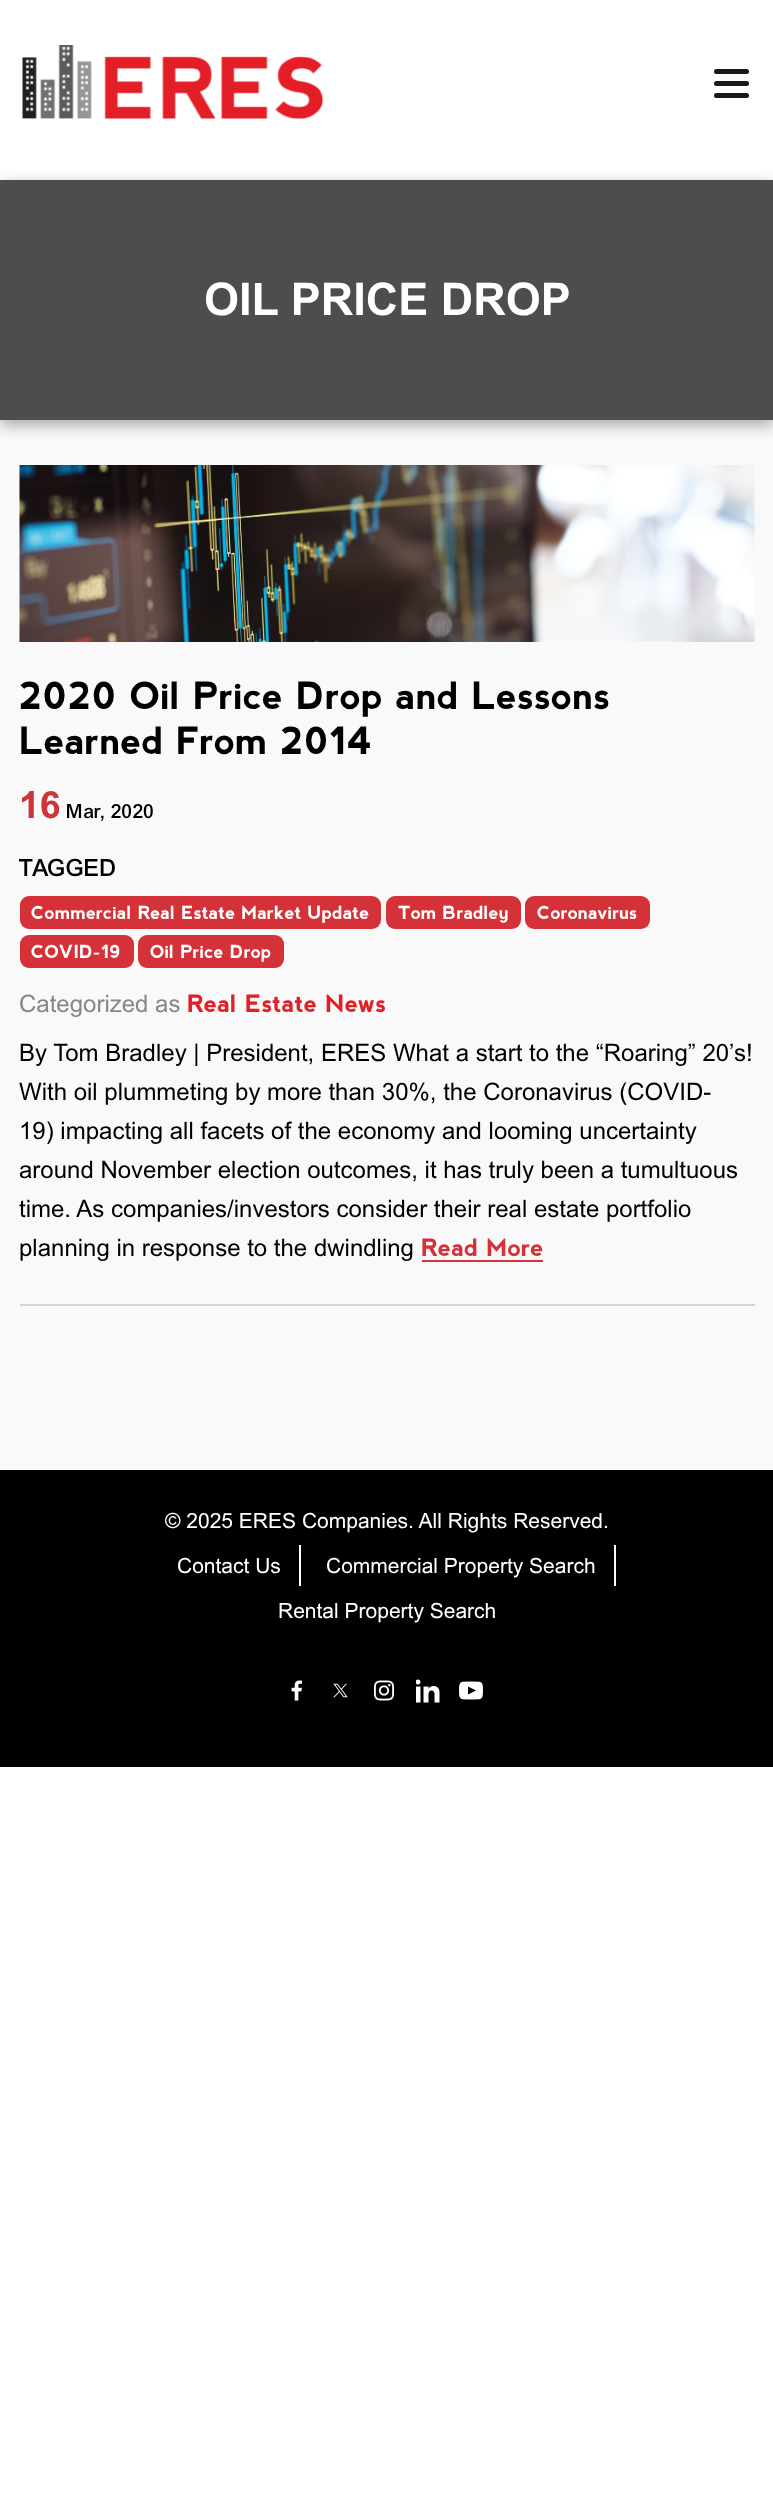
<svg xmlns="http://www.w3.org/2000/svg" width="773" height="2495">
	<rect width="100%" height="100%" fill="#FFFFFF" />
	<image x="22" y="45" width="301" height="74" href="assets/img1.png" />
	<rect x="714" y="81" width="35" height="5" rx="2.5" fill="#1A1919" />
	<rect x="714" y="69" width="35" height="5" rx="2.5" fill="#1A1919" />
	<rect x="714" y="93" width="35" height="5" rx="2.5" fill="#1A1919" />
	<rect x="0" y="420" width="773" height="1050" fill="#F9F9F9" />
	<rect x="0" y="185" width="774" height="240" fill="#A5A5A5" filter="blur(7.5px)" />
	<rect x="0" y="180" width="773" height="240" fill="#4D4D4D" />
	<text x="204" y="315" font-family="Arial" font-size="45" font-weight="700" fill="#FFFFFF">OIL PRICE DROP</text>
	<image x="19" y="465" width="736" height="177" href="assets/img2.png" />
	<g font-family="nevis" font-size="37.5" font-weight="700" fill="#000000">
		<text x="19" y="709">2020 Oil Price Drop and Lessons</text>
		<text x="19" y="754">Learned From 2014</text>
	</g>
	<text x="19" y="818" font-family="Arial" font-size="37.5" font-weight="700" fill="#CE3537">16</text>
	<text x="67" y="818" font-family="Arial" font-size="21" font-weight="500" fill="#000000">Mar, 2020</text>
	<text x="19" y="876" font-family="Arial" font-size="25.5" font-weight="500" fill="#000000">TAGGED</text>
	<rect x="20" y="896" width="361" height="33" rx="9" fill="#D43138" />
	<text x="31" y="919" font-family="nevis" font-size="18" font-weight="700" fill="#FFFFFF">Commercial Real Estate Market Update</text>
	<rect x="386" y="896" width="135" height="33" rx="9" fill="#D43138" />
	<text x="398" y="919" font-family="nevis" font-size="18" font-weight="700" fill="#FFFFFF">Tom Bradley</text>
	<rect x="525" y="896" width="125" height="33" rx="9" fill="#D43138" />
	<text x="537" y="919" font-family="nevis" font-size="18" font-weight="700" fill="#FFFFFF">Coronavirus</text>
	<rect x="20" y="935" width="114" height="33" rx="9" fill="#D43138" />
	<text x="31" y="958" font-family="nevis" font-size="18" font-weight="700" fill="#FFFFFF">COVID-19</text>
	<rect x="138" y="935" width="146" height="33" rx="9" fill="#D43138" />
	<text x="150" y="958" font-family="nevis" font-size="18" font-weight="700" fill="#FFFFFF">Oil Price Drop</text>
	<text x="19" y="1012" font-family="Arial" font-size="24" fill="#878787">Categorized as</text>
	<text x="187" y="1012" font-family="nevis" font-size="24" font-weight="700" fill="#E41E26">Real Estate News</text>
	<g font-family="Arial" font-size="24" fill="#000000">
		<text x="19" y="1061">By Tom Bradley | President, ERES What a start to the “Roaring” 20’s!</text>
		<text x="19" y="1100">With oil plummeting by more than 30%, the Coronavirus (COVID-</text>
		<text x="19" y="1139">19) impacting all facets of the economy and looming uncertainty</text>
		<text x="19" y="1178">around November election outcomes, it has truly been a tumultuous</text>
		<text x="19" y="1217">time. As companies/investors consider their real estate portfolio</text>
		<text x="19" y="1256">planning in response to the dwindling</text>
	</g>
	<text x="421" y="1256" font-family="nevis" font-size="24" font-weight="700" fill="#D43138">Read More</text>
	<rect x="422" y="1260" width="121" height="2" fill="#D43138" />
	<rect x="20" y="1304" width="735" height="2" fill="#D4D4D4" />
	<rect x="0" y="1470" width="773" height="297" fill="#000000" />
	<text x="165" y="1528" font-family="Arial" font-size="21" fill="#FFFFFF">© 2025 ERES Companies. All Rights Reserved.</text>
	<rect x="299" y="1545" width="2" height="41" fill="#FFFFFF" />
	<text x="177" y="1573" font-family="Arial" font-size="21" fill="#FFFFFF">Contact Us</text>
	<rect x="614" y="1545" width="2" height="41" fill="#FFFFFF" />
	<g font-family="Arial" font-size="21" fill="#FFFFFF">
		<text x="326" y="1573">Commercial Property Search</text>
		<text x="278" y="1618">Rental Property Search</text>
	</g>
	<image x="291" y="1680" width="11" height="21" href="assets/img3.png" />
	<image x="333" y="1683" width="15" height="15" href="assets/img4.png" />
	<image x="374" y="1680" width="20" height="21" href="assets/img5.png" />
	<image x="416" y="1679" width="24" height="24" href="assets/img6.png" />
	<image x="459" y="1681" width="24" height="19" href="assets/img7.png" />
</svg>
